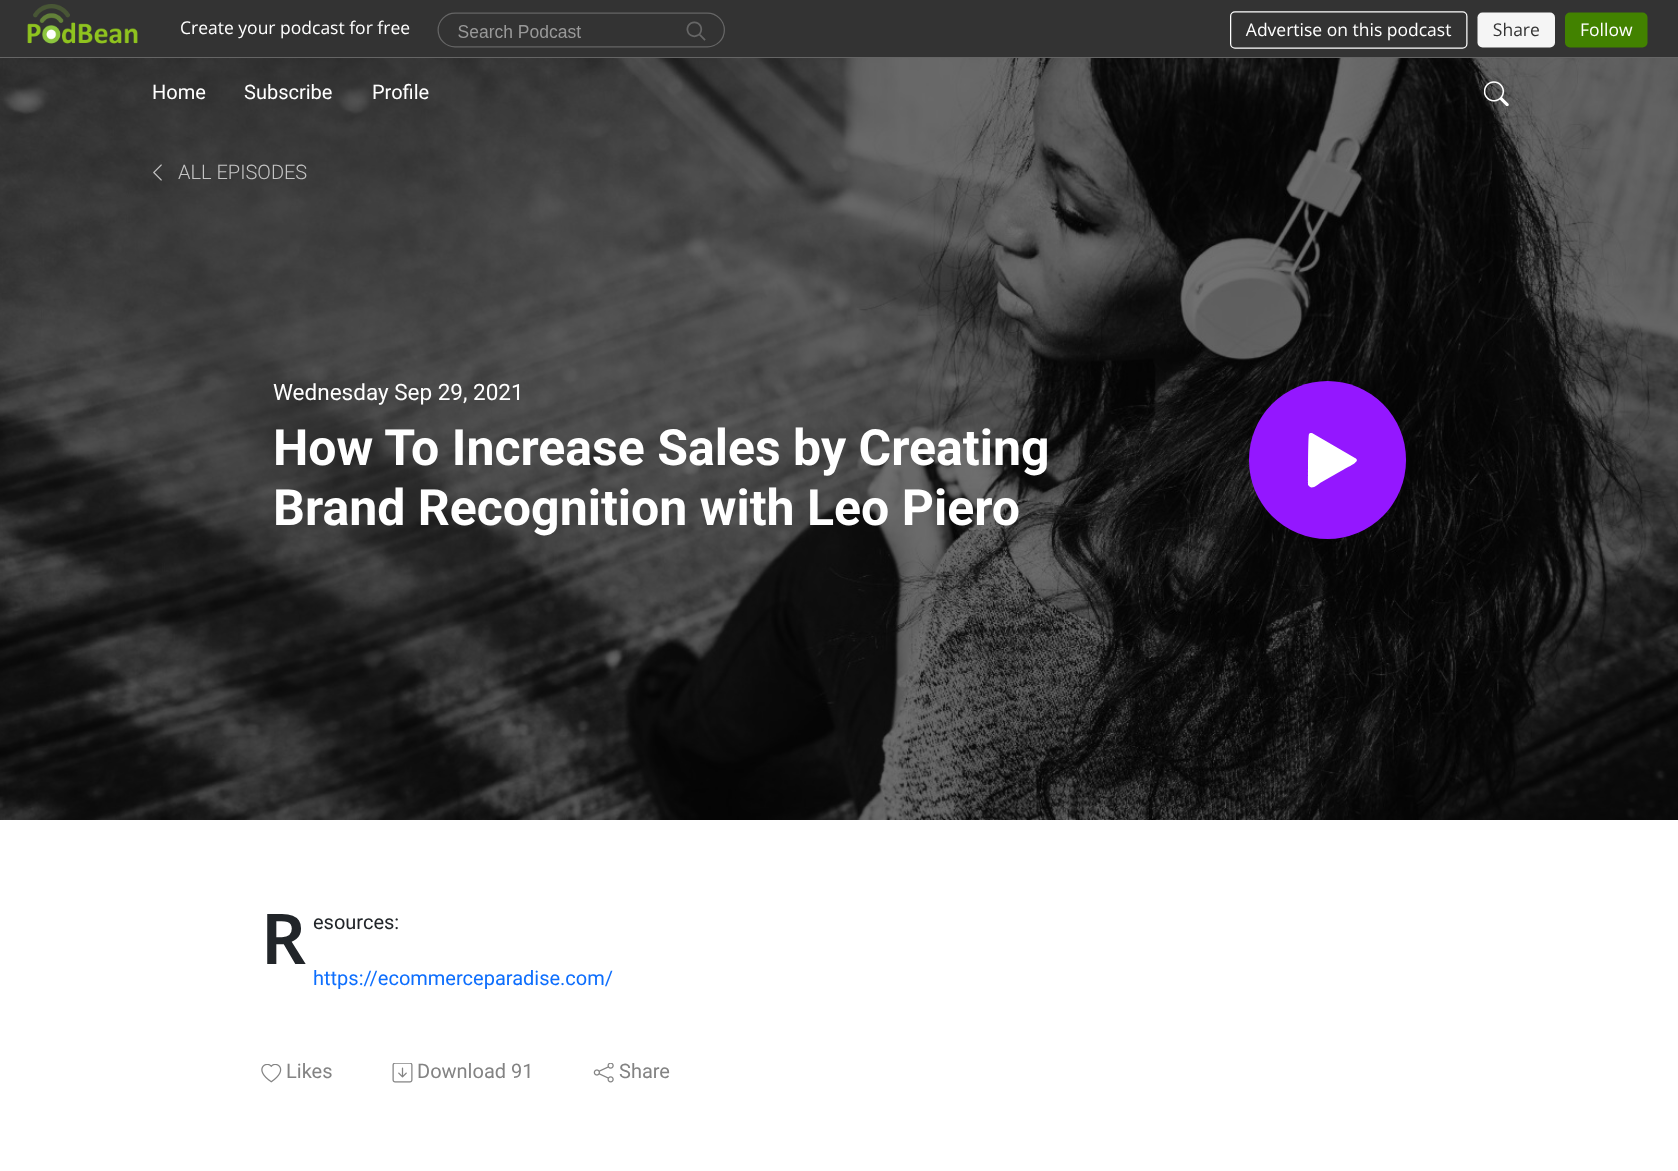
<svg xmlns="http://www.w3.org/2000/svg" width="1678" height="1171">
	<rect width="100%" height="100%" fill="#FFFFFF" />
	<rect x="0" y="0" width="1678" height="4" fill="#333333" />
	<image x="0" y="4" width="1678" height="54" href="assets/img1.png" />
	<image x="0" y="58" width="1678" height="762" href="assets/img3.png" />
	<g font-family="Roboto" font-size="20" fill="#FFFFFF">
		<text x="152" y="99">Home</text>
		<text x="244" y="99">Subscribe</text>
		<text x="372" y="99">Profile</text>
	</g>
	<image x="1484" y="81" width="25" height="25" href="assets/img2.png" />
	<image x="153" y="164" width="9" height="17" href="assets/img4.png" />
	<text x="178" y="179" font-family="Roboto" font-size="20" font-weight="300" fill="#C4C4C4">ALL EPISODES</text>
	<text x="273" y="400" font-family="Roboto" font-size="22.5" fill="#FFFFFF">Wednesday Sep 29, 2021</text>
	<g font-family="Roboto" font-size="50" font-weight="700" fill="#FFFFFF">
		<text x="273" y="465">How To Increase Sales by Creating</text>
		<text x="273" y="525">Brand Recognition with Leo Piero</text>
	</g>
	<rect x="1249" y="381" width="157" height="158" rx="78.5" fill="#9417FF" />
	<path d="M1355 458L1312 433H1310L1309 434C1308 435 1308 481 1308 485L1310 487C1313 489 1319 484 1320 483L1341 471C1352 465 1361 461 1355 458Z" fill="#FFFFFF" />
	<text x="261" y="964" font-family="Noto Sans" font-size="70" font-weight="600" fill="#212529">R</text>
	<text x="313" y="929" font-family="Roboto" font-size="20" fill="#212529">esources:</text>
	<text x="313" y="985" font-family="Roboto" font-size="20" fill="#0D6EFD">https://ecommerceparadise.com/</text>
	<image x="261" y="1064" width="21" height="19" href="assets/img5.png" />
	<text x="286" y="1078" font-family="Roboto" font-size="20" fill="#838383">Likes</text>
	<image x="392" y="1063" width="21" height="20" href="assets/img6.png" />
	<text x="417" y="1078" font-family="Roboto" font-size="20" fill="#838383">Download 91</text>
	<image x="593" y="1063" width="21" height="20" href="assets/img7.png" />
	<text x="619" y="1078" font-family="Roboto" font-size="20" fill="#838383">Share</text>
</svg>
